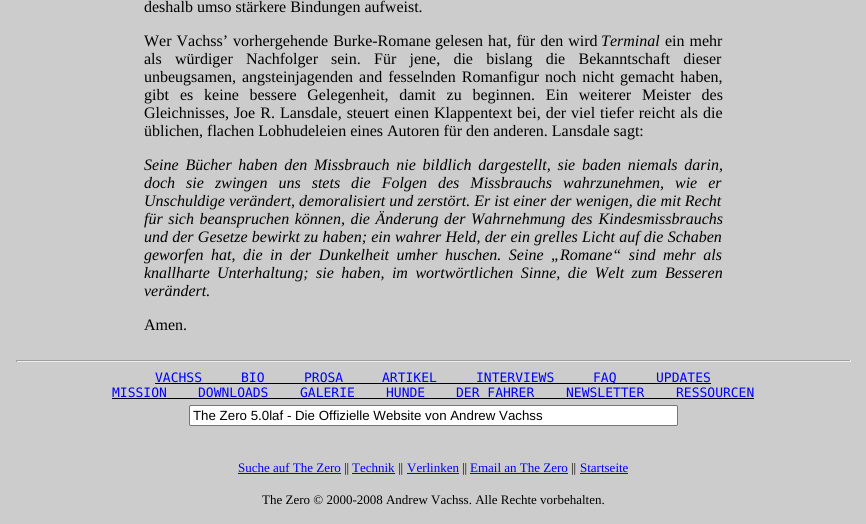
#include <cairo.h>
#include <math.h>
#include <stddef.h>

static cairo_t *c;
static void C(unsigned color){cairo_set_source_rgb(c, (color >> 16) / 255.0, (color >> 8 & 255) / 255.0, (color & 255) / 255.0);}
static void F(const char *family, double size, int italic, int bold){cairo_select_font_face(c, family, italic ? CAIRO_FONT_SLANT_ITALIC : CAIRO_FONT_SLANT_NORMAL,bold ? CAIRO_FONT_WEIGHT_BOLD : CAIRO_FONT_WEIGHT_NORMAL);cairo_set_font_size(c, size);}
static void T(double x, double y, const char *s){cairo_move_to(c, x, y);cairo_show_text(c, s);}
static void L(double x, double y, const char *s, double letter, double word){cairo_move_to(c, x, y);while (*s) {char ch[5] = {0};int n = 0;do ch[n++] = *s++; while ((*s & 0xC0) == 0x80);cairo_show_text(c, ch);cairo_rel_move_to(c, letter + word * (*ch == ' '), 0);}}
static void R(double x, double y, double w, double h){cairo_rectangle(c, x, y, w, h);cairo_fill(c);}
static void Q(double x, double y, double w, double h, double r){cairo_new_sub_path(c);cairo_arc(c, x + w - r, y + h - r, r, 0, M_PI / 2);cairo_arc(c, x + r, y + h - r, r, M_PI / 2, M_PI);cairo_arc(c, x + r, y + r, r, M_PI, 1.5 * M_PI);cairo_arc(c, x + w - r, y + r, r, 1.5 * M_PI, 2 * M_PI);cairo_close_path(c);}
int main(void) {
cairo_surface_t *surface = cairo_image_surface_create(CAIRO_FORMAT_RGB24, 866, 524);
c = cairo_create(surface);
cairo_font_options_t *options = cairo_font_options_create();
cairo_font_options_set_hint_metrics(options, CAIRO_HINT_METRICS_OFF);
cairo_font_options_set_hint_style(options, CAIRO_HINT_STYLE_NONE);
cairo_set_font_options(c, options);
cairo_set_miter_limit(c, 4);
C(0xcccccc);
cairo_paint(c);
F("Liberation Serif",16,0,0);
C(0x000000);
T(144,12,"deshalb umso stärkere Bindungen aufweist.");
L(144,46,"Wer Vachss’ vorhergehende Burke-Romane",0,1);
L(435,46,"gelesen hat, für den wird",0,1);
F("Liberation Serif",16,1,0);
T(601,46,"Terminal");
F("Liberation Serif",16,0,0);
L(665,46,"ein mehr",0,1);
L(144,64,"als würdiger Nachfolger",0,9.25);
L(331,64,"sein. Für jene, die bislang die Bekanntschaft dieser",0,9.25);
T(144,82,"unbeugsamen,");
L(242,82,"angsteinjagenden and fesselnden Romanfigur noch nicht gemacht haben,",0,2);
T(144,100,"gibt");
L(180,100,"es keine bessere Gelegenheit, damit zu beginnen. Ein weiterer Meister des",0,6.75);
L(144,118,"Gleichnisses, Joe R. Lansdale, steuert einen Klappentext bei, der viel",0,1);
L(600,118,"tiefer reicht als die",0,1);
T(144,136,"üblichen, flachen Lobhudeleien eines Autoren für den anderen. Lansdale sagt:");
F("Liberation Serif",16,1,0);
L(144,170,"Seine Bücher haben den",0,2.75);
L(314,170,"Missbrauch nie bildlich dargestellt, sie baden niemals darin,",0,2.75);
L(144,188,"doch sie",0,7);
L(215,188,"zwingen uns stets die Folgen des Missbrauchs wahrzunehmen, wie er",0,7);
T(144,206,"Unschuldige verändert, demoralisiert und zerstört. Er ist einer der wenigen, die mit Recht");
L(144,224,"für sich beanspruchen können, die Änderung der",0,1.5);
L(471,224,"Wahrnehmung des Kindesmissbrauchs",0,2);
L(144,242,"und der Gesetze bewirkt zu haben; ein wahrer Held, der ein grelles Licht auf die Schaben",0,.25);
L(144,260,"geworfen hat, die in",0,3.5);
L(290,260,"der Dunkelheit umher huschen. Seine „Romane“ sind mehr als",0,3.5);
T(144,278,"knallharte");
L(217,278,"Unterhaltung; sie haben, im wortwörtlichen Sinne, die Welt zum Besseren",0,3.5);
T(144,296,"verändert.");
F("Liberation Serif",16,0,0);
T(144,330,"Amen.");
C(0x9f9f9f);
R(16,360,835,1);
C(0xeeeeee);
R(850,360,1,2);
R(16,361,835,1);
C(0x9f9f9f);
R(16,360,1,2);
F("DejaVu Sans Mono",13,0,0);
C(0x0000ff);
T(155,382,"VACHSS");
T(241,382,"BIO");
T(304,382,"PROSA");
T(382,382,"ARTIKEL");
T(476,382,"INTERVIEWS");
C(0x000000);
R(155,383,556,1);
C(0x0000ff);
T(593,382,"FAQ");
T(656,382,"UPDATES");
T(112,397,"MISSION");
C(0x000000);
R(112,398,642,1);
C(0x0000ff);
T(198,397,"DOWNLOADS");
T(300,397,"GALERIE");
T(386,397,"HUNDE");
T(456,397,"DER FAHRER");
T(566,397,"NEWSLETTER");
T(676,397,"RESSOURCEN");
C(0xffffff);
Q(189.5,405.5,488,20,1.5);
cairo_fill_preserve(c);
C(0x767676);
cairo_set_line_width(c,1);
cairo_stroke(c);
F("Liberation Sans",13.3,0,0);
C(0x000000);
T(193,420,"The Zero 5.0laf - Die Offizielle Website von Andrew Vachss");
F("Liberation Serif",13,0,0);
C(0x0000ff);
T(238,472,"Suche auf The Zero");
R(238,473,103,1);
C(0x000000);
T(344,472,"||");
C(0x0000ff);
T(352,472,"Technik");
R(352,473,43,1);
C(0x000000);
T(398,472,"||");
C(0x0000ff);
T(407,472,"Verlinken");
R(407,473,52,1);
C(0x000000);
T(462,472,"||");
C(0x0000ff);
T(470,472,"Email an The Zero");
R(470,473,98,1);
C(0x000000);
T(571,472,"||");
C(0x0000ff);
T(580,472,"Startseite");
R(580,473,48,1);
C(0x000000);
T(262,504,"The Zero © 2000-2008 Andrew Vachss. Alle Rechte vorbehalten.");
cairo_surface_write_to_png(surface, "o.png");
cairo_font_options_destroy(options);
cairo_destroy(c);
cairo_surface_destroy(surface);
return 0;
}
